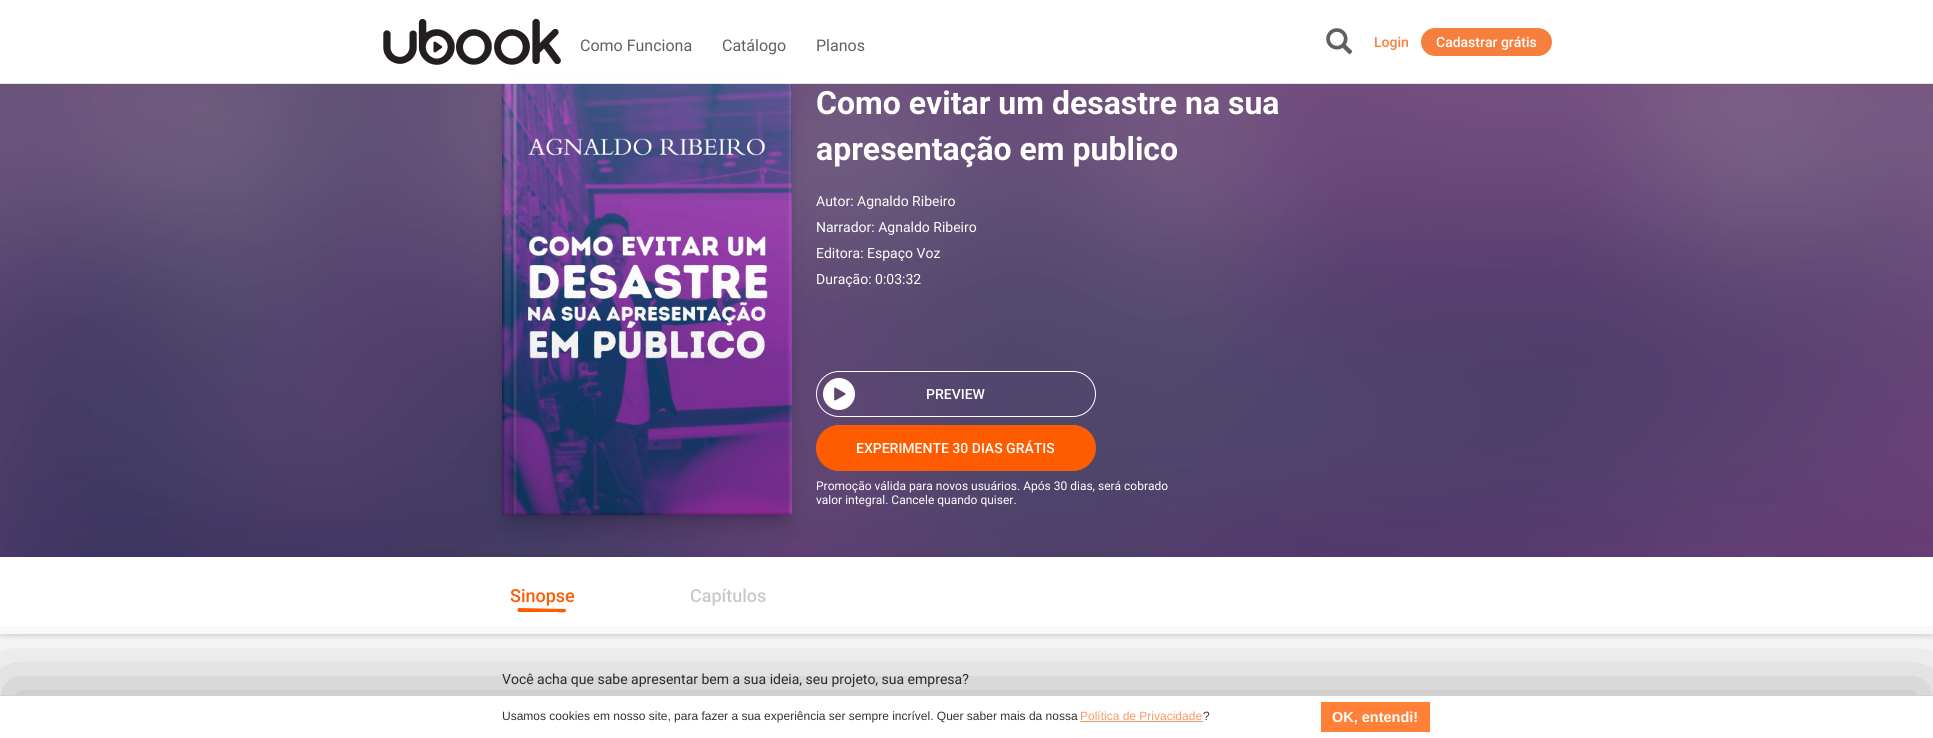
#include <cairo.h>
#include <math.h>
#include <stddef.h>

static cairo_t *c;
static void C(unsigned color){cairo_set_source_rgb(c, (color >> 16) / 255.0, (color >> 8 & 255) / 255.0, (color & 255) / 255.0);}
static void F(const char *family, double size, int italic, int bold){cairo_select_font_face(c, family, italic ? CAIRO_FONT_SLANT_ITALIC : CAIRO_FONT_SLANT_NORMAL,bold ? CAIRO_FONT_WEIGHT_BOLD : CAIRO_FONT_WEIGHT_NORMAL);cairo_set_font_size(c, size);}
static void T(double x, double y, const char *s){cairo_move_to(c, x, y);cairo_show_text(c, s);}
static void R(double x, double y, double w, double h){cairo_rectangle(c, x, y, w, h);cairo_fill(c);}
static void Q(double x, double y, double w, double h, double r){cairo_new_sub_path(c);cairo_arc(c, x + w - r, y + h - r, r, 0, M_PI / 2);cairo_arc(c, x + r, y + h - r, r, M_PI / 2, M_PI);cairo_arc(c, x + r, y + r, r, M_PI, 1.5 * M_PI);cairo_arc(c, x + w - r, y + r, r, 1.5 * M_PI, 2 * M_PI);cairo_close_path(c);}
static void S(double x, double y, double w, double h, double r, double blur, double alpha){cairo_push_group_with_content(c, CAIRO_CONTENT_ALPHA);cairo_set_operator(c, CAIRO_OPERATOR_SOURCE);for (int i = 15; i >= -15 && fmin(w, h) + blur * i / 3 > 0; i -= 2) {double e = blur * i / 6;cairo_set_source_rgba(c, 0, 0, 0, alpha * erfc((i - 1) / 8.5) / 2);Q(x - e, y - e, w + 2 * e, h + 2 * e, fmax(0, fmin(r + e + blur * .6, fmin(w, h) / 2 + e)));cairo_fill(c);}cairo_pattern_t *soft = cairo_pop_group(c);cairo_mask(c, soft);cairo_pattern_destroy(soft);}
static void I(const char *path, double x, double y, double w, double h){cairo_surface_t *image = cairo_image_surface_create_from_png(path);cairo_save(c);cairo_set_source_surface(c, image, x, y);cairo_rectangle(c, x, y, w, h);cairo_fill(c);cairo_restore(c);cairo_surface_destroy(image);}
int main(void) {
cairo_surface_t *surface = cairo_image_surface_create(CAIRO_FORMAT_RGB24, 1933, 738);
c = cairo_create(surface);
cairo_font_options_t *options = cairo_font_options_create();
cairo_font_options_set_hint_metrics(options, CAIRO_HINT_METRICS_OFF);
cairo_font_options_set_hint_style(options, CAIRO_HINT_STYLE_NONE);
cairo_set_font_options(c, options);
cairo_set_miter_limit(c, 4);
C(0xffffff);
cairo_paint(c);
C(0x56206b);
R(0,84,1933,473);
I("3.png",0,84,1933,473);
C(0x000000);
S(506,88,282,427,0,4,.2);
Q(816.5,371.5,279,45,22.5);
C(0xffffff);
cairo_set_line_width(c,1);
cairo_stroke(c);
C(0xff5b00);
Q(816.5,425.5,279,45,22.5);
cairo_fill_preserve(c);
cairo_stroke(c);
C(0x000000);
S(510,104,274,419,0,12,.2);
C(0xffffff);
R(506,80,282,3);
C(0xe7e7e7);
R(0,83,1933,1);
I("1.png",383,18,178,47);
F("Roboto",16,0,0);
C(0x606060);
T(580,51,"Como Funciona");
T(722,51,"Catálogo");
T(816,51,"Planos");
I("2.png",1326,28,27,27);
F("Roboto Medium",14,0,0);
C(0xf67f3e);
T(1374,47,"Login");
Q(1421,28,131,28,14);
cairo_fill(c);
C(0xffffff);
T(1436,47,"Cadastrar grátis");
I("4.png",502,84,290,431);
F("Roboto",32,0,1);
T(816,114,"Como evitar um desastre na sua");
T(816,160,"apresentação em publico");
F("Roboto",14,0,0);
T(816,206,"Autor: Agnaldo Ribeiro");
T(816,232,"Narrador: Agnaldo Ribeiro");
T(816,258,"Editora: Espaço Voz");
T(816,284,"Duração: 0:03:32");
I("5.png",823,378,32,32);
F("Roboto Medium",14,0,0);
T(926,399,"PREVIEW");
T(856,453,"EXPERIMENTE 30 DIAS GRÁTIS");
F("Roboto",12,0,0);
T(816,490,"Promoção válida para novos usuários. Após 30 dias, será cobrado");
T(816,504,"valor integral. Cancele quando quiser.");
cairo_save(c);
cairo_set_fill_rule(c,CAIRO_FILL_RULE_EVEN_ODD);
cairo_new_path(c);
cairo_move_to(c,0,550);
cairo_line_to(c,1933,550);
cairo_line_to(c,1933,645);
cairo_line_to(c,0,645);
cairo_close_path(c);
cairo_move_to(c,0,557);
cairo_line_to(c,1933,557);
cairo_line_to(c,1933,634);
cairo_line_to(c,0,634);
cairo_close_path(c);
cairo_clip(c);
C(0x000000);
S(0,559,1933,77,0,2.5,.15);
cairo_restore(c);
F("Roboto Medium",18,0,0);
C(0xff5b00);
T(510,602,"Sinopse");
cairo_new_path(c);
cairo_move_to(c,519,608);
cairo_line_to(c,565,609);
cairo_line_to(c,566,610);
cairo_curve_to(c,567,614,558,612,557,612);
cairo_line_to(c,519,612);
cairo_curve_to(c,517,612,517,608,519,608);
cairo_close_path(c);
cairo_fill(c);
C(0xc9c9c9);
T(690,602,"Capítulos");
F("Roboto",14,0,0);
C(0x333333);
T(502,684,"Você acha que sabe apresentar bem a sua ideia, seu projeto, sua empresa?");
cairo_save(c);
cairo_rectangle(c,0,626,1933,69);
cairo_clip(c);
C(0x000000);
S(8,683,1917,27,0,42.5,.3);
cairo_restore(c);
C(0xd1d1d1);
R(0,695,1933,1);
F("Liberation Sans",12,0,0);
C(0x333333);
T(502,720,"Usamos cookies em nosso site, para fazer a sua experiência ser sempre incrível. Quer saber mais da nossa");
C(0xf89965);
T(1080,720,"Política de Privacidade");
R(1080,721,123,1);
C(0x333333);
T(1203,720,"?");
C(0xff8036);
R(1321,702,109,30);
F("Liberation Sans",14.5,0,1);
C(0xffffff);
T(1332,722,"OK, entendi!");
cairo_surface_write_to_png(surface, "o.png");
cairo_font_options_destroy(options);
cairo_destroy(c);
cairo_surface_destroy(surface);
return 0;
}
